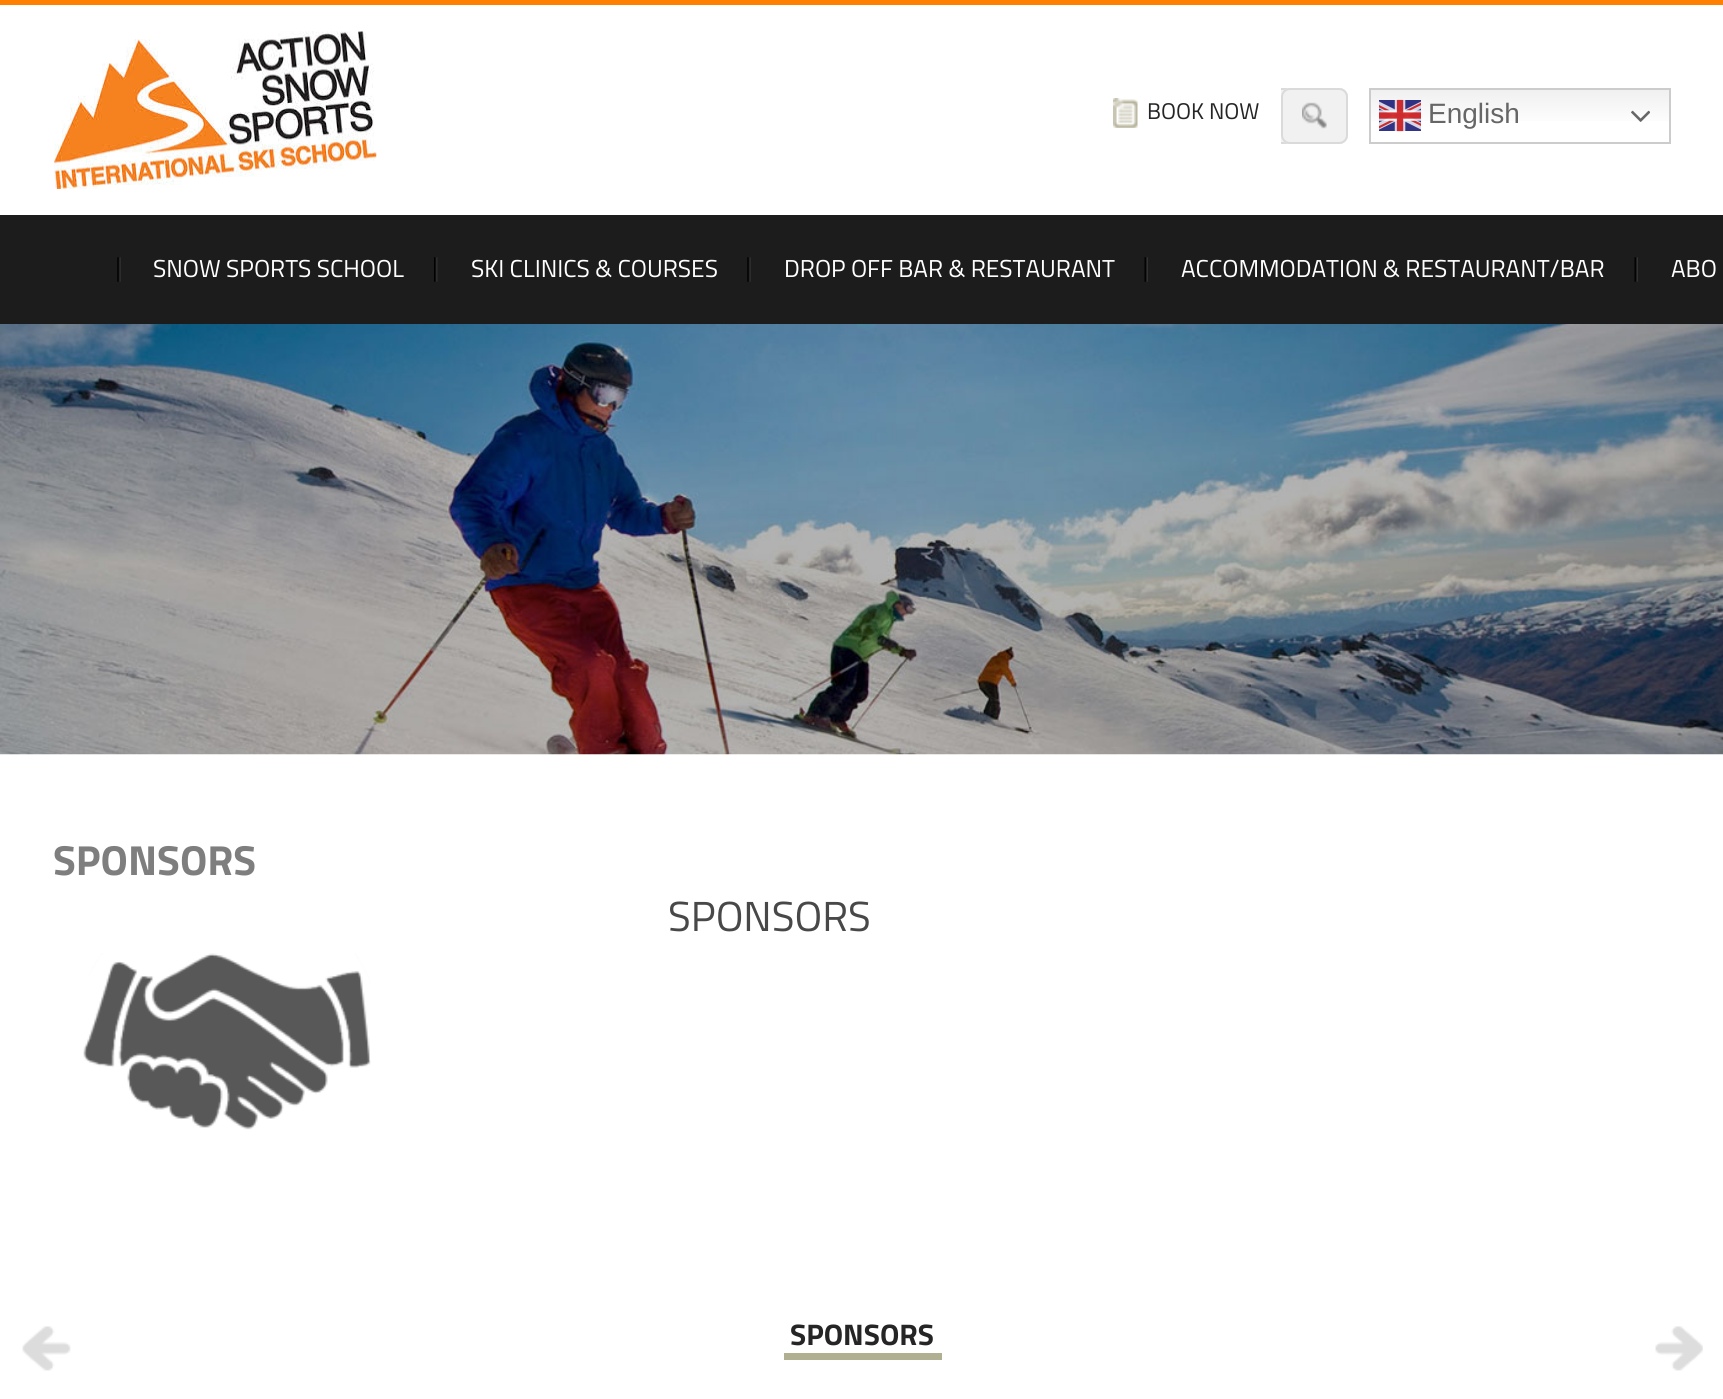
#include <cairo.h>
#include <math.h>
#include <stddef.h>

static cairo_t *c;
static void C(unsigned color){cairo_set_source_rgb(c, (color >> 16) / 255.0, (color >> 8 & 255) / 255.0, (color & 255) / 255.0);}
static void F(const char *family, double size, int italic, int bold){cairo_select_font_face(c, family, italic ? CAIRO_FONT_SLANT_ITALIC : CAIRO_FONT_SLANT_NORMAL,bold ? CAIRO_FONT_WEIGHT_BOLD : CAIRO_FONT_WEIGHT_NORMAL);cairo_set_font_size(c, size);}
static void T(double x, double y, const char *s){cairo_move_to(c, x, y);cairo_show_text(c, s);}
static void R(double x, double y, double w, double h){cairo_rectangle(c, x, y, w, h);cairo_fill(c);}
static void Q(double x, double y, double w, double h, double r){cairo_new_sub_path(c);cairo_arc(c, x + w - r, y + h - r, r, 0, M_PI / 2);cairo_arc(c, x + r, y + h - r, r, M_PI / 2, M_PI);cairo_arc(c, x + r, y + r, r, M_PI, 1.5 * M_PI);cairo_arc(c, x + w - r, y + r, r, 1.5 * M_PI, 2 * M_PI);cairo_close_path(c);}
static void I(const char *path, double x, double y, double w, double h){cairo_surface_t *image = cairo_image_surface_create_from_png(path);cairo_save(c);cairo_set_source_surface(c, image, x, y);cairo_rectangle(c, x, y, w, h);cairo_fill(c);cairo_restore(c);cairo_surface_destroy(image);}
int main(void) {
cairo_surface_t *surface = cairo_image_surface_create(CAIRO_FORMAT_RGB24, 1723, 1399);
c = cairo_create(surface);
cairo_font_options_t *options = cairo_font_options_create();
cairo_font_options_set_hint_metrics(options, CAIRO_HINT_METRICS_OFF);
cairo_font_options_set_hint_style(options, CAIRO_HINT_STYLE_NONE);
cairo_set_font_options(c, options);
cairo_set_miter_limit(c, 4);
cairo_pattern_t *gradient;
C(0xffffff);
cairo_paint(c);
C(0xff8000);
R(0,0,1723,5);
I("1.png",54,31,323,158);
I("2.png",1113,98,25,30);
F("Titillium Web",22.75,0,0);
C(0x252525);
T(1147,119,"BOOK NOW");
C(0xf1f1f1);
cairo_new_path(c);
cairo_move_to(c,1281,88);
cairo_line_to(c,1339,88);
cairo_curve_to(c,1344,88,1348,92,1348,97);
cairo_line_to(c,1348,135);
cairo_curve_to(c,1348,140,1344,144,1339,144);
cairo_line_to(c,1281,144);
cairo_close_path(c);
cairo_fill(c);
cairo_save(c);
cairo_rectangle(c,1281,88,67,56);
cairo_clip(c);
Q(1272,89,75,54,8);
C(0xdadada);
cairo_stroke(c);
cairo_restore(c);
Q(1281,88,67,56,9);
cairo_fill(c);
I("3.png",1302,102,25,27);
Q(1282,89,65,54,8);
C(0xdadada);
cairo_stroke(c);
gradient = cairo_pattern_create_linear(1520,87,1520,144);
cairo_pattern_add_color_stop_rgba(gradient,0,0.937,0.937,0.937,1);
cairo_pattern_add_color_stop_rgba(gradient,.7,1,1,1,1);
cairo_set_source(c,gradient);
cairo_pattern_destroy(gradient);
R(1371,90,298,31);
cairo_rectangle(c,1370,89,300,54);
C(0xcccccc);
cairo_stroke(c);
I("4.png",1379,99,42,33);
F("Liberation Sans",28,0,0);
C(0x666666);
T(1428,123,"English");
I("5.png",1631,110,19,12);
C(0x1c1c1c);
R(0,215,1723,109);
I("6.png",117,257,4,25);
I("7.png",434,257,4,25);
F("Titillium Web",24.5,0,0);
C(0xffffff);
T(153,277,"SNOW SPORTS SCHOOL");
I("6.png",747,257,4,25);
T(471,277,"SKI CLINICS & COURSES");
I("8.png",1144,257,4,25);
T(784,277,"DROP OFF BAR & RESTAURANT");
I("8.png",1634,257,4,25);
T(1181,277,"ACCOMMODATION & RESTAURANT/BAR");
T(1671,277,"ABO");
I("9.png",0,324,1723,431);
F("Titillium Web",42,0,1);
C(0x7e7e7e);
T(53,875,"SPONSORS");
F("Titillium Web",42,0,0);
C(0x484848);
T(668,931,"SPONSORS");
I("10.png",83,953,288,177);
C(0xb0af91);
R(784,1353,158,7);
F("Titillium Web",29.75,0,1);
C(0x252525);
T(790,1345,"SPONSORS");
I("11.png",22,1326,49,45);
I("12.png",1655,1326,48,45);
cairo_surface_write_to_png(surface, "o.png");
cairo_font_options_destroy(options);
cairo_destroy(c);
cairo_surface_destroy(surface);
return 0;
}
